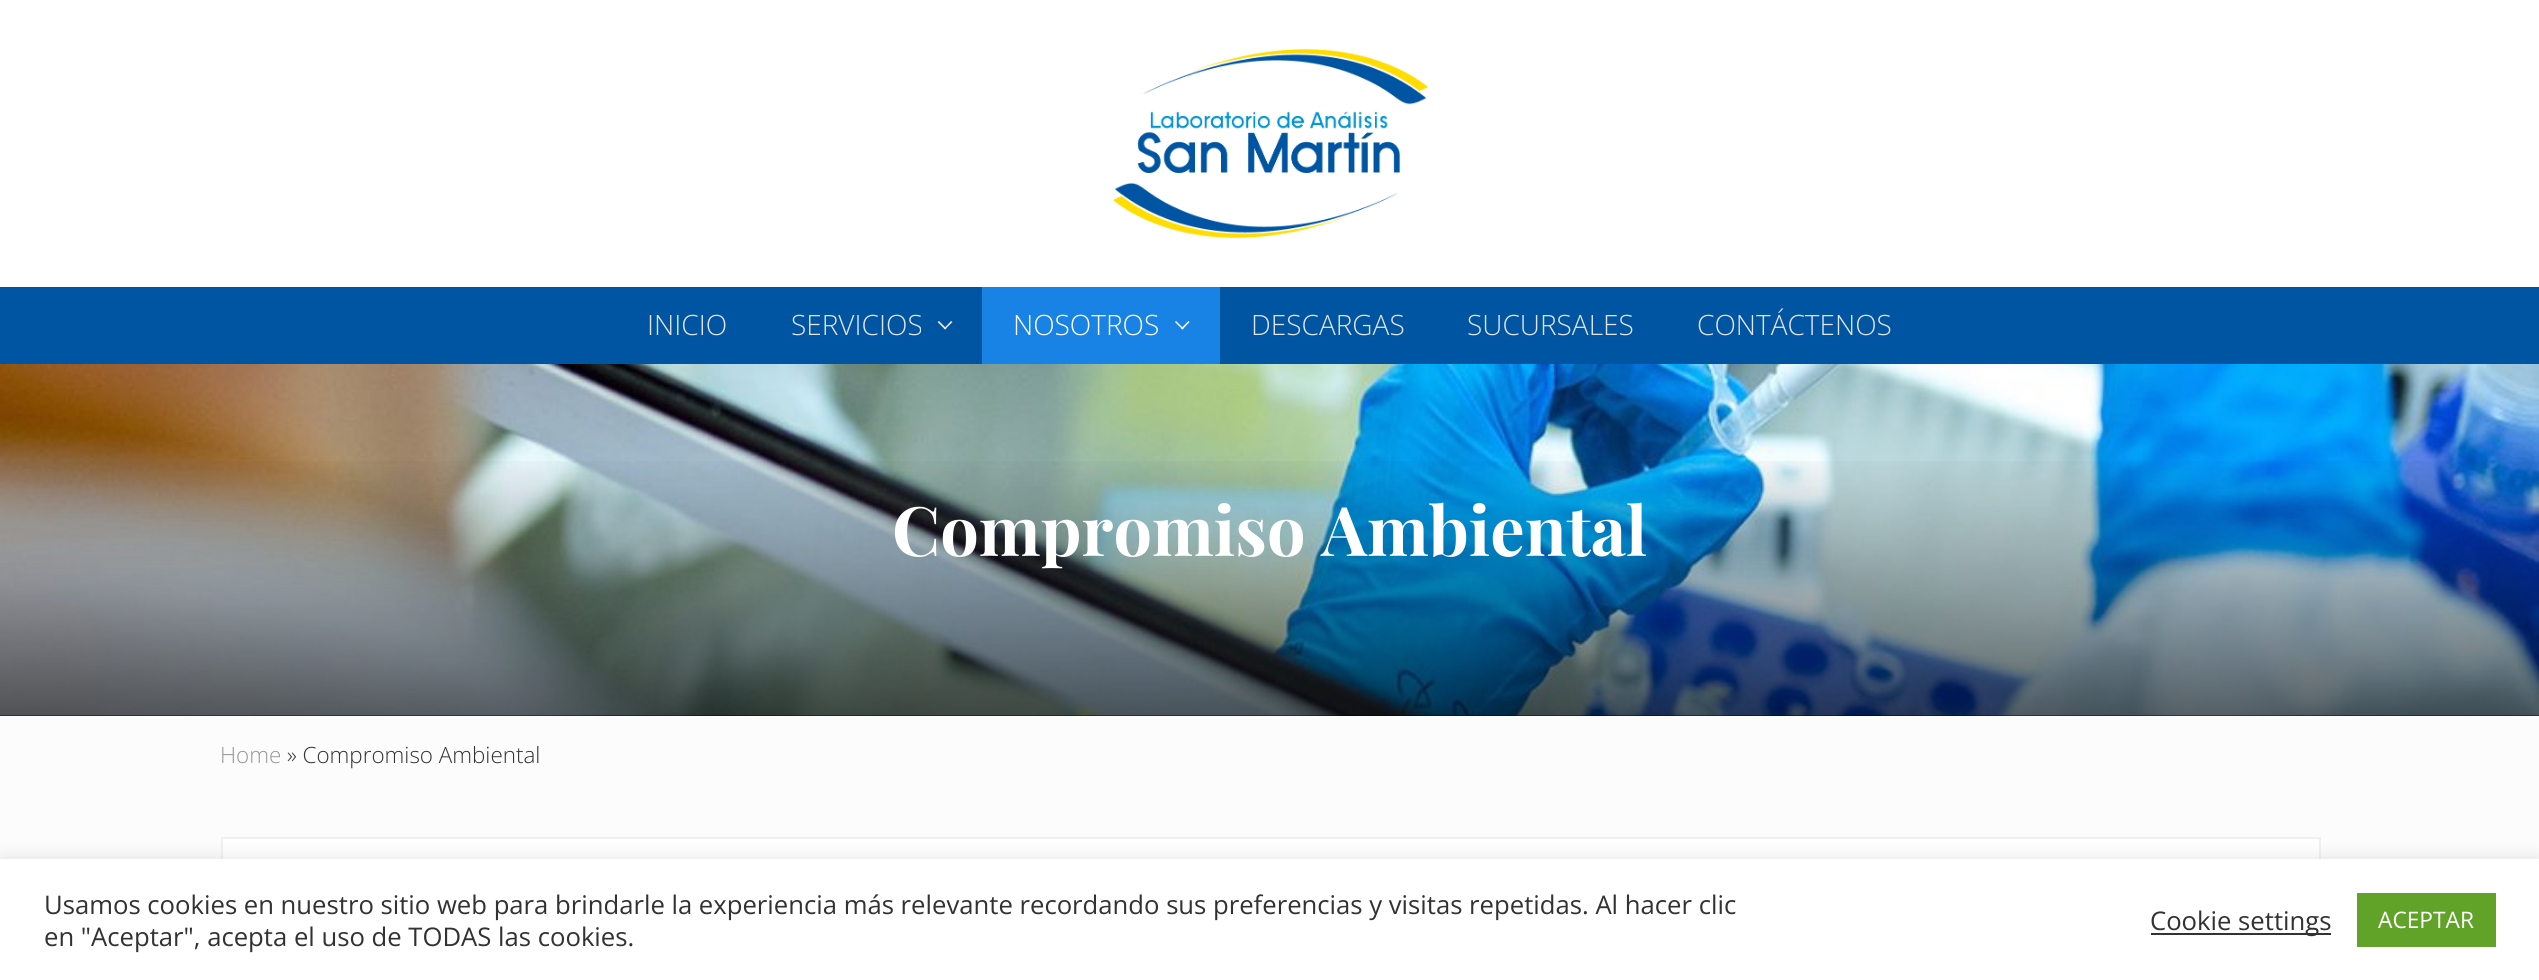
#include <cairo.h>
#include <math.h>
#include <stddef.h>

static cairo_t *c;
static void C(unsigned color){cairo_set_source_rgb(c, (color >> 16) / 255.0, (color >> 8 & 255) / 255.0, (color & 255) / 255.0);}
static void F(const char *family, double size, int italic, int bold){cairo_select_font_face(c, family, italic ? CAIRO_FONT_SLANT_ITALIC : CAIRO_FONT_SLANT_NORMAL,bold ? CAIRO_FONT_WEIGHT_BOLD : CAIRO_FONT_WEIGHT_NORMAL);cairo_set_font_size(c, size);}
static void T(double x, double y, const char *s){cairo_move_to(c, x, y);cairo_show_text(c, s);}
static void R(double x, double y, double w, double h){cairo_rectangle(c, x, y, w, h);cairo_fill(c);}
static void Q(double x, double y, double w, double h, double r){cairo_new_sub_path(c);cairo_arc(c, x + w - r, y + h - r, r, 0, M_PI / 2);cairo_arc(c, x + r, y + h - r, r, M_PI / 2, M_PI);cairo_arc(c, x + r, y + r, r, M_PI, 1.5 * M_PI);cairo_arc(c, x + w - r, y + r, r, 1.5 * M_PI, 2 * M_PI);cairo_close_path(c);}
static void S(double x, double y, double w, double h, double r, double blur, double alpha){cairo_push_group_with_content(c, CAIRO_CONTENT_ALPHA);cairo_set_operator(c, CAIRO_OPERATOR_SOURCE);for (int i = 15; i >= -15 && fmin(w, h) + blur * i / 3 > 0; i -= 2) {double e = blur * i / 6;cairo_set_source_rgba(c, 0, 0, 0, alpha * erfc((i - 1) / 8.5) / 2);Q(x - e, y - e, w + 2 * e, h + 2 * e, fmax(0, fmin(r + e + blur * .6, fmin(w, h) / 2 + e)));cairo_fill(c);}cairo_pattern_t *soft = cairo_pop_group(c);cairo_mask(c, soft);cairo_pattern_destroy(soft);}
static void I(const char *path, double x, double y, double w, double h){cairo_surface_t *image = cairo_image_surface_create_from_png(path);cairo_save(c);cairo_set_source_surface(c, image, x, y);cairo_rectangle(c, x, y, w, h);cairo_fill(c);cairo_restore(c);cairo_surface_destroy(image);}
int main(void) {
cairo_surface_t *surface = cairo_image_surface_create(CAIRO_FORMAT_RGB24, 2539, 980);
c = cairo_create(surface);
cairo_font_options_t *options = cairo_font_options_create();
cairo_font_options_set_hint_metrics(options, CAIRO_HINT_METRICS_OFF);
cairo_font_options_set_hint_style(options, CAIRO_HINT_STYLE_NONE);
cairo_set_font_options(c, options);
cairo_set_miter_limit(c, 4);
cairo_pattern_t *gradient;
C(0xfcfcfc);
cairo_paint(c);
C(0xffffff);
R(0,0,2539,287);
I("1.png",1113,49,315,189);
C(0x0055a3);
R(0,287,2539,77);
F("Open Sans Light",28,0,0);
C(0xe4e4e4);
T(647,335,"INICIO");
T(791,335,"SERVICIOS");
cairo_new_path(c);
cairo_move_to(c,951,321);
cairo_line_to(c,952.5,322);
cairo_line_to(c,945,329.5);
cairo_line_to(c,944,328.5);
cairo_close_path(c);
cairo_fill(c);
cairo_new_path(c);
cairo_move_to(c,939,321);
cairo_line_to(c,946.5,328.5);
cairo_line_to(c,945,329.5);
cairo_line_to(c,937.5,322);
cairo_close_path(c);
cairo_fill(c);
C(0x1882e5);
R(982,287,238,77);
C(0xffffff);
T(1013,335,"NOSOTROS");
cairo_new_path(c);
cairo_move_to(c,1188.5,321);
cairo_line_to(c,1189.5,322);
cairo_line_to(c,1182.5,329.5);
cairo_line_to(c,1181,328.5);
cairo_close_path(c);
cairo_fill(c);
cairo_new_path(c);
cairo_move_to(c,1176,321);
cairo_line_to(c,1183.5,328.5);
cairo_line_to(c,1182.5,329.5);
cairo_line_to(c,1175,322);
cairo_close_path(c);
cairo_fill(c);
C(0xe4e4e4);
T(1251,335,"DESCARGAS");
T(1467,335,"SUCURSALES");
T(1697,335,"CONTÁCTENOS");
C(0x000000);
R(0,715,2539,1);
I("2.png",0,364,2539,352);
gradient = cairo_pattern_create_linear(1270,364,1270,716);
cairo_pattern_add_color_stop_rgba(gradient,.25,0,0,0,0);
cairo_pattern_add_color_stop_rgba(gradient,1,0,0,0,.6);
cairo_set_source(c,gradient);
cairo_pattern_destroy(gradient);
R(0,461,2539,255);
F("Playfair Display",68.3,0,1);
C(0xffffff);
T(892,556,"Compromiso Ambiental");
F("Open Sans Light",22.4,0,0);
C(0x979797);
T(220,763,"Home");
C(0x323232);
T(287,763,"» Compromiso Ambiental");
C(0xffffff);
R(223,839,2096,20);
cairo_rectangle(c,222,838,2098,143);
C(0xf0f0f0);
cairo_stroke(c);
C(0xacabab);
S(0,858,2539,120,0,9,.3);
C(0xffffff);
R(0,859,2539,121);
F("Open Sans",25.67,0,0);
C(0x323232);
T(44,914,"Usamos cookies en nuestro sitio web para brindarle la experiencia más relevante recordando sus preferencias y visitas repetidas. Al hacer clic");
T(44,946,"en \"Aceptar\", acepta el uso de TODAS las cookies.");
C(0x333333);
R(2151,933,180,2);
C(0x323232);
T(2150,930,"Cookie settings");
C(0x61a229);
R(2357,893,139,54);
F("Open Sans",22.75,0,0);
C(0xffffff);
T(2378,928,"ACEPTAR");
cairo_surface_write_to_png(surface, "o.png");
cairo_font_options_destroy(options);
cairo_destroy(c);
cairo_surface_destroy(surface);
return 0;
}
